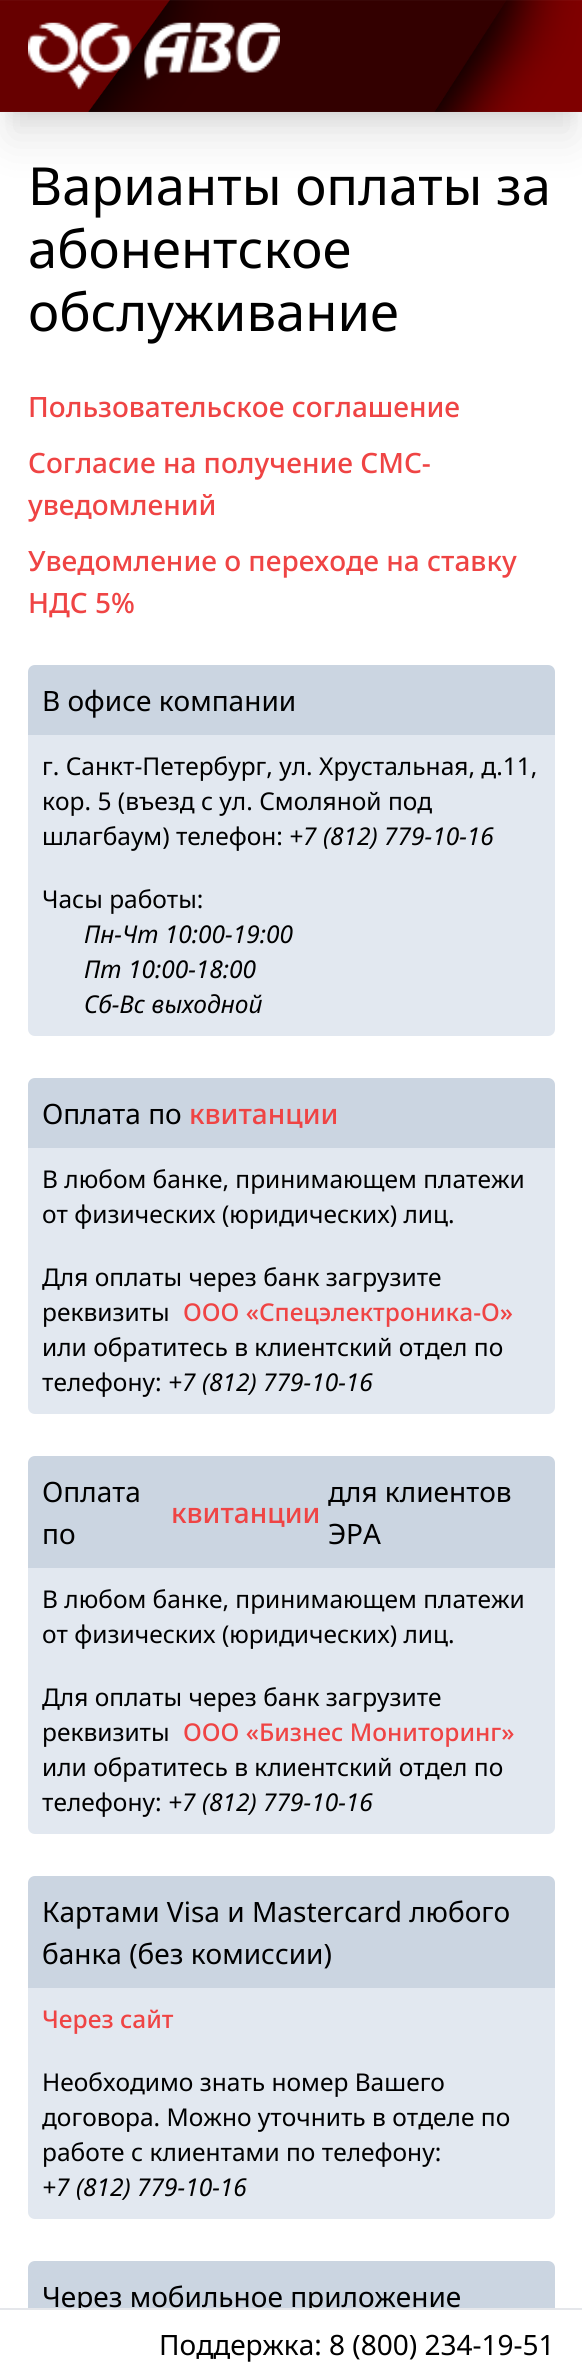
#include <cairo.h>
#include <math.h>
#include <stddef.h>

static cairo_t *c;
static void C(unsigned color){cairo_set_source_rgb(c, (color >> 16) / 255.0, (color >> 8 & 255) / 255.0, (color & 255) / 255.0);}
static void F(const char *family, double size, int italic, int bold){cairo_select_font_face(c, family, italic ? CAIRO_FONT_SLANT_ITALIC : CAIRO_FONT_SLANT_NORMAL,bold ? CAIRO_FONT_WEIGHT_BOLD : CAIRO_FONT_WEIGHT_NORMAL);cairo_set_font_size(c, size);}
static void T(double x, double y, const char *s){cairo_move_to(c, x, y);cairo_show_text(c, s);}
static void R(double x, double y, double w, double h){cairo_rectangle(c, x, y, w, h);cairo_fill(c);}
static void Q(double x, double y, double w, double h, double r){cairo_new_sub_path(c);cairo_arc(c, x + w - r, y + h - r, r, 0, M_PI / 2);cairo_arc(c, x + r, y + h - r, r, M_PI / 2, M_PI);cairo_arc(c, x + r, y + r, r, M_PI, 1.5 * M_PI);cairo_arc(c, x + w - r, y + r, r, 1.5 * M_PI, 2 * M_PI);cairo_close_path(c);}
static void S(double x, double y, double w, double h, double r, double blur, double alpha){cairo_push_group_with_content(c, CAIRO_CONTENT_ALPHA);cairo_set_operator(c, CAIRO_OPERATOR_SOURCE);for (int i = 15; i >= -15 && fmin(w, h) + blur * i / 3 > 0; i -= 2) {double e = blur * i / 6;cairo_set_source_rgba(c, 0, 0, 0, alpha * erfc((i - 1) / 8.5) / 2);Q(x - e, y - e, w + 2 * e, h + 2 * e, fmax(0, fmin(r + e + blur * .6, fmin(w, h) / 2 + e)));cairo_fill(c);}cairo_pattern_t *soft = cairo_pop_group(c);cairo_mask(c, soft);cairo_pattern_destroy(soft);}
static void I(const char *path, double x, double y, double w, double h){cairo_surface_t *image = cairo_image_surface_create_from_png(path);cairo_save(c);cairo_set_source_surface(c, image, x, y);cairo_rectangle(c, x, y, w, h);cairo_fill(c);cairo_restore(c);cairo_surface_destroy(image);}
int main(void) {
cairo_surface_t *surface = cairo_image_surface_create(CAIRO_FORMAT_RGB24, 582, 2377);
c = cairo_create(surface);
cairo_font_options_t *options = cairo_font_options_create();
cairo_font_options_set_hint_metrics(options, CAIRO_HINT_METRICS_OFF);
cairo_font_options_set_hint_style(options, CAIRO_HINT_STYLE_NONE);
cairo_set_font_options(c, options);
cairo_set_miter_limit(c, 4);
C(0xffffff);
cairo_paint(c);
C(0x000000);
S(11,25,561,91,0,9,.1);
S(9,44,565,94,0,22,.1);
I("1.png",0,0,582,112);
I("2.png",28,22,252,68);
F("Noto Sans",52.5,0,0);
C(0x000000);
T(28,205,"Варианты оплаты за");
T(28,268,"абонентское");
T(28,331,"обслуживание");
F("Noto Sans Medium",28,0,0);
C(0xef4444);
T(28,417,"Пользовательское соглашение");
T(28,473,"Согласие на получение СМС-");
T(28,515,"уведомлений");
T(28,571,"Уведомление о переходе на ставку");
T(28,613,"НДС 5%");
C(0xcbd5e1);
cairo_new_path(c);
cairo_move_to(c,35,665);
cairo_line_to(c,548,665);
cairo_curve_to(c,552,665,555,668,555,672);
cairo_line_to(c,555,735);
cairo_line_to(c,28,735);
cairo_line_to(c,28,672);
cairo_curve_to(c,28,668,31,665,35,665);
cairo_close_path(c);
cairo_fill(c);
F("Noto Sans",28,0,0);
C(0x000000);
T(42,711,"В офисе компании");
C(0xe2e8f0);
R(28,735,527,133);
F("Noto Sans",24.5,0,0);
C(0x000000);
T(42,775,"г. Санкт-Петербург, ул. Хрустальная, д.11,");
T(42,810,"кор. 5 (въезд с ул. Смоляной под");
T(42,845,"шлагбаум) телефон:");
F("Noto Sans",24.5,1,0);
T(289,845,"+7 (812) 779-10-16");
C(0xe2e8f0);
cairo_new_path(c);
cairo_move_to(c,28,868);
cairo_line_to(c,555,868);
cairo_line_to(c,555,1029);
cairo_curve_to(c,555,1033,552,1036,548,1036);
cairo_line_to(c,35,1036);
cairo_curve_to(c,31,1036,28,1033,28,1029);
cairo_close_path(c);
cairo_fill(c);
F("Noto Sans",24.5,0,0);
C(0x000000);
T(42,908,"Часы работы:");
F("Noto Sans",24.5,1,0);
T(84,943,"Пн-Чт 10:00-19:00");
T(84,978,"Пт 10:00-18:00");
T(84,1013,"Сб-Вс выходной");
C(0xcbd5e1);
cairo_new_path(c);
cairo_move_to(c,35,1078);
cairo_line_to(c,548,1078);
cairo_curve_to(c,552,1078,555,1081,555,1085);
cairo_line_to(c,555,1148);
cairo_line_to(c,28,1148);
cairo_line_to(c,28,1085);
cairo_curve_to(c,28,1081,31,1078,35,1078);
cairo_close_path(c);
cairo_fill(c);
F("Noto Sans",28,0,0);
C(0x000000);
T(42,1124,"Оплата по");
F("Noto Sans Medium",28,0,0);
C(0xef4444);
T(189,1124,"квитанции");
C(0xe2e8f0);
R(28,1148,527,98);
F("Noto Sans",24.5,0,0);
C(0x000000);
T(42,1188,"В любом банке, принимающем платежи");
T(42,1223,"от физических (юридических) лиц.");
C(0xe2e8f0);
cairo_new_path(c);
cairo_move_to(c,28,1246);
cairo_line_to(c,555,1246);
cairo_line_to(c,555,1407);
cairo_curve_to(c,555,1411,552,1414,548,1414);
cairo_line_to(c,35,1414);
cairo_curve_to(c,31,1414,28,1411,28,1407);
cairo_close_path(c);
cairo_fill(c);
C(0x000000);
T(42,1286,"Для оплаты через банк загрузите");
T(42,1321,"реквизиты");
F("Noto Sans Medium",24.5,0,0);
C(0xef4444);
T(183,1321,"ООО «Спецэлектроника-О»");
F("Noto Sans",24.5,0,0);
C(0x000000);
T(42,1356,"или обратитесь в клиентский отдел по");
T(42,1391,"телефону:");
F("Noto Sans",24.5,1,0);
T(168,1391,"+7 (812) 779-10-16");
C(0xcbd5e1);
cairo_new_path(c);
cairo_move_to(c,35,1456);
cairo_line_to(c,548,1456);
cairo_curve_to(c,552,1456,555,1459,555,1463);
cairo_line_to(c,555,1568);
cairo_line_to(c,28,1568);
cairo_line_to(c,28,1463);
cairo_curve_to(c,28,1459,31,1456,35,1456);
cairo_close_path(c);
cairo_fill(c);
F("Noto Sans",28,0,0);
C(0x000000);
T(42,1502,"Оплата");
T(328,1502,"для клиентов");
F("Noto Sans Medium",28,0,0);
C(0xef4444);
T(171,1523,"квитанции");
F("Noto Sans",28,0,0);
C(0x000000);
T(42,1544,"по");
T(328,1544,"ЭРА");
C(0xe2e8f0);
R(28,1568,527,98);
F("Noto Sans",24.5,0,0);
C(0x000000);
T(42,1608,"В любом банке, принимающем платежи");
T(42,1643,"от физических (юридических) лиц.");
C(0xe2e8f0);
cairo_new_path(c);
cairo_move_to(c,28,1666);
cairo_line_to(c,555,1666);
cairo_line_to(c,555,1827);
cairo_curve_to(c,555,1831,552,1834,548,1834);
cairo_line_to(c,35,1834);
cairo_curve_to(c,31,1834,28,1831,28,1827);
cairo_close_path(c);
cairo_fill(c);
C(0x000000);
T(42,1706,"Для оплаты через банк загрузите");
T(42,1741,"реквизиты");
F("Noto Sans Medium",24.5,0,0);
C(0xef4444);
T(183,1741,"ООО «Бизнес Мониторинг»");
F("Noto Sans",24.5,0,0);
C(0x000000);
T(42,1776,"или обратитесь в клиентский отдел по");
T(42,1811,"телефону:");
F("Noto Sans",24.5,1,0);
T(168,1811,"+7 (812) 779-10-16");
C(0xcbd5e1);
cairo_new_path(c);
cairo_move_to(c,35,1876);
cairo_line_to(c,548,1876);
cairo_curve_to(c,552,1876,555,1879,555,1883);
cairo_line_to(c,555,1988);
cairo_line_to(c,28,1988);
cairo_line_to(c,28,1883);
cairo_curve_to(c,28,1879,31,1876,35,1876);
cairo_close_path(c);
cairo_fill(c);
F("Noto Sans",28,0,0);
C(0x000000);
T(42,1922,"Картами Visa и Mastercard любого");
T(42,1964,"банка (без комиссии)");
C(0xe2e8f0);
R(28,1988,527,63);
F("Noto Sans Medium",24.5,0,0);
C(0xef4444);
T(42,2028,"Через сайт");
C(0xe2e8f0);
cairo_new_path(c);
cairo_move_to(c,28,2051);
cairo_line_to(c,555,2051);
cairo_line_to(c,555,2212);
cairo_curve_to(c,555,2216,552,2219,548,2219);
cairo_line_to(c,35,2219);
cairo_curve_to(c,31,2219,28,2216,28,2212);
cairo_close_path(c);
cairo_fill(c);
F("Noto Sans",24.5,0,0);
C(0x000000);
T(42,2091,"Необходимо знать номер Вашего");
T(42,2126,"договора. Можно уточнить в отделе по");
T(42,2161,"работе с клиентами по телефону:");
F("Noto Sans",24.5,1,0);
T(42,2196,"+7 (812) 779-10-16");
C(0xcbd5e1);
cairo_new_path(c);
cairo_move_to(c,35,2261);
cairo_line_to(c,548,2261);
cairo_curve_to(c,552,2261,555,2264,555,2268);
cairo_line_to(c,555,2308);
cairo_line_to(c,28,2308);
cairo_line_to(c,28,2268);
cairo_curve_to(c,28,2264,31,2261,35,2261);
cairo_close_path(c);
cairo_fill(c);
cairo_save(c);
cairo_rectangle(c,0,112,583,2196);
cairo_clip(c);
F("Noto Sans",28,0,0);
C(0x000000);
T(42,2307,"Через мобильное приложение");
cairo_restore(c);
C(0xe5e7eb);
R(0,2308,582,2);
F("Noto Sans",28,0,0);
C(0x000000);
T(159,2355,"Поддержка: 8 (800) 234-19-51");
cairo_surface_write_to_png(surface, "o.png");
cairo_font_options_destroy(options);
cairo_destroy(c);
cairo_surface_destroy(surface);
return 0;
}
